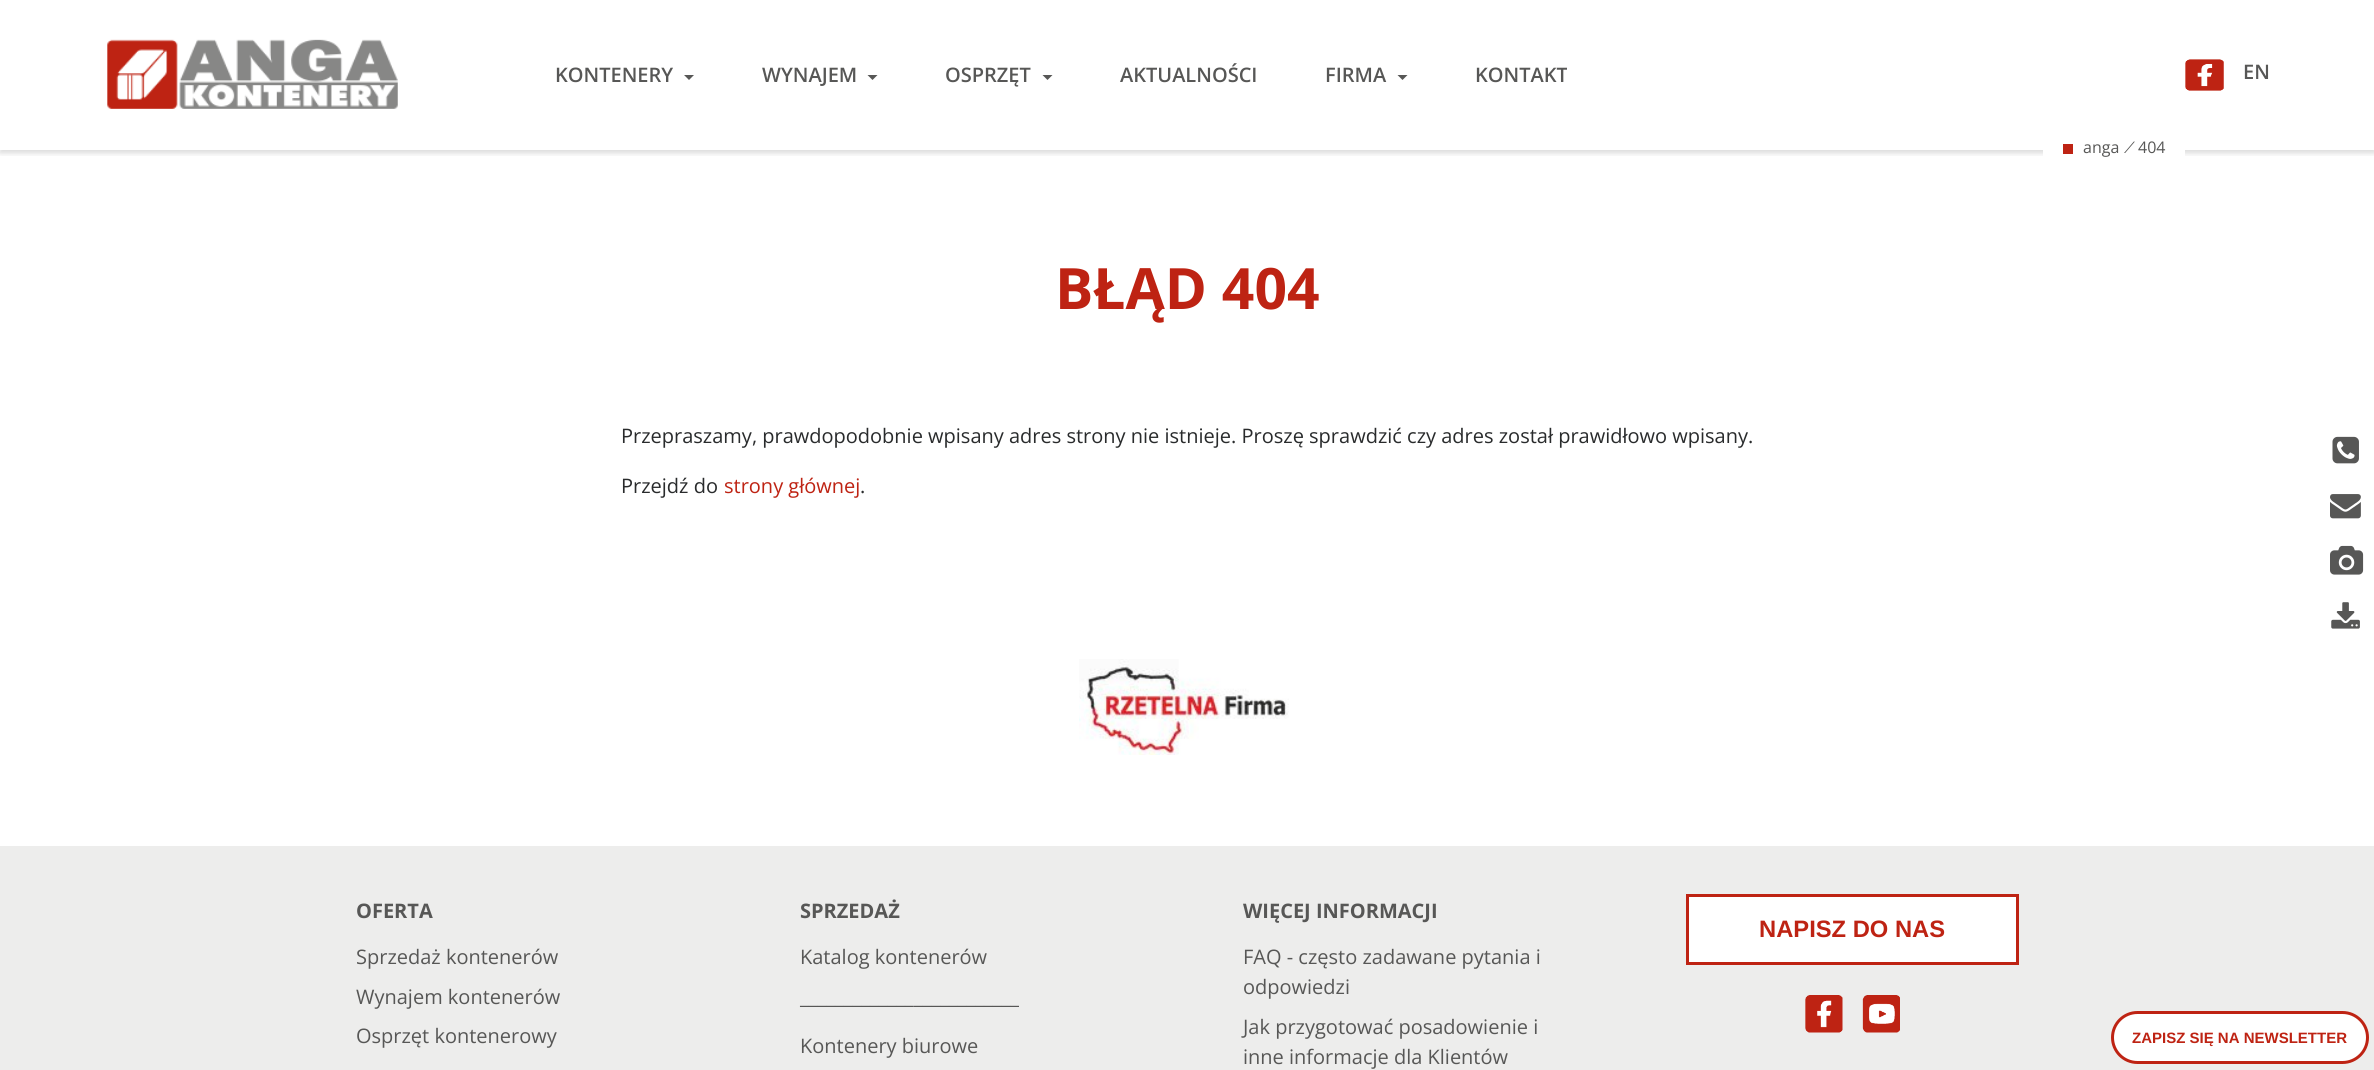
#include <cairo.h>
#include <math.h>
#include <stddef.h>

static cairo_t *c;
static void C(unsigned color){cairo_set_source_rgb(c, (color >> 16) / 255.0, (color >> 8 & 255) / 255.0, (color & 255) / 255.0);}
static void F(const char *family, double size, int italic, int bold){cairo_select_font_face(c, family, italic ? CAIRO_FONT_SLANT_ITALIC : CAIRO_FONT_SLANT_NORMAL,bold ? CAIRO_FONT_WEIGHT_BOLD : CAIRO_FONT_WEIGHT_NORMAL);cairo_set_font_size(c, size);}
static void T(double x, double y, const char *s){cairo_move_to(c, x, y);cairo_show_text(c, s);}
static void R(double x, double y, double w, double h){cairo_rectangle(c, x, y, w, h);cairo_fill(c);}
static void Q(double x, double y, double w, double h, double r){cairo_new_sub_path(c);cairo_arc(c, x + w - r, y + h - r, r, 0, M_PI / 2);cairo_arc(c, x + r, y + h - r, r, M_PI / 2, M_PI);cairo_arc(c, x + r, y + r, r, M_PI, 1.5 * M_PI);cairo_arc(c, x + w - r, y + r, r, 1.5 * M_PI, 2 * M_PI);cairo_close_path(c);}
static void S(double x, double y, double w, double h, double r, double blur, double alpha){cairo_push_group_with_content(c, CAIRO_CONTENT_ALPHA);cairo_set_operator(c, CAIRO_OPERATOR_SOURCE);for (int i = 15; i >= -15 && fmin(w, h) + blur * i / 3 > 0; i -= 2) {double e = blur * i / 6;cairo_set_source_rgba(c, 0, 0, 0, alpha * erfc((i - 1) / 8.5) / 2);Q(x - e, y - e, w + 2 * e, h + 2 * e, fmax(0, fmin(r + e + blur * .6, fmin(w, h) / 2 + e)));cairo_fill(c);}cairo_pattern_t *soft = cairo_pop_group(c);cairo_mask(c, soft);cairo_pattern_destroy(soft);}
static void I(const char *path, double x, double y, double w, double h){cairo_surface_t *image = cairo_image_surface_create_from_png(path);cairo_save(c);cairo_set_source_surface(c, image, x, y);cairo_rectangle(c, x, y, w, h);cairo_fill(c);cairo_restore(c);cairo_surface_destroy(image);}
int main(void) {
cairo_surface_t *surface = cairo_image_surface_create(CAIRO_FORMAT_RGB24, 2374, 1070);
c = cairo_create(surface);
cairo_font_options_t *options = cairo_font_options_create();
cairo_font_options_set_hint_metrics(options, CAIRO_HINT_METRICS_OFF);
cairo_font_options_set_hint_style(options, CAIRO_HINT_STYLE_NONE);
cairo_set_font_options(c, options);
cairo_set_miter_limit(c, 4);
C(0xffffff);
cairo_paint(c);
cairo_save(c);
cairo_rectangle(c,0,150,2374,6);
cairo_clip(c);
C(0x000000);
S(0,3,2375,150,0,3,.15);
cairo_restore(c);
I("1.png",107,39,291,70);
F("Open Sans SemiBold",20,0,0);
C(0x575756);
T(555,82,"KONTENERY");
cairo_new_path(c);
cairo_move_to(c,684,75);
cairo_line_to(c,694,75);
cairo_line_to(c,689,80);
cairo_close_path(c);
cairo_fill(c);
T(762,82,"WYNAJEM");
cairo_new_path(c);
cairo_move_to(c,867.5,75);
cairo_line_to(c,877.5,75);
cairo_line_to(c,872.5,80);
cairo_close_path(c);
cairo_fill(c);
T(945,82,"OSPRZĘT");
cairo_new_path(c);
cairo_move_to(c,1042.5,75);
cairo_line_to(c,1052.5,75);
cairo_line_to(c,1047.5,80);
cairo_close_path(c);
cairo_fill(c);
T(1120,82,"AKTUALNOŚCI");
T(1325,82,"FIRMA");
cairo_new_path(c);
cairo_move_to(c,1397.5,75);
cairo_line_to(c,1407.5,75);
cairo_line_to(c,1402.5,80);
cairo_close_path(c);
cairo_fill(c);
T(1475,82,"KONTAKT");
I("2.png",2185,59,39,32);
T(2243,79,"EN");
C(0xffffff);
R(2043,150,142,7);
C(0xbe2313);
R(2063,144,10,10);
F("Open Sans",16,0,0);
C(0x575756);
T(2083,153,"anga");
F("Open Sans",16,1,0);
T(2127,153,"⁄");
F("Open Sans",16,0,0);
T(2138,153,"404");
F("Open Sans",57,0,1);
C(0xbe2313);
T(1055,309,"BŁĄD 404");
F("Open Sans",20,0,0);
C(0x292b2c);
T(621,443,"Przepraszamy, prawdopodobnie wpisany adres strony nie istnieje. Proszę sprawdzić czy adres został prawidłowo wpisany.");
T(621,493,"Przejdź do");
C(0xbe2313);
T(724,493,"strony głównej");
C(0x292b2c);
T(860,493,".");
I("3.png",2332,436,27,28);
I("4.png",2330,494,31,25);
I("5.png",2330,545,34,30);
I("6.png",2331,602,29,27);
I("7.png",1079,659,210,96);
C(0xededec);
R(0,846,2374,224);
F("Open Sans",20,0,1);
C(0x575756);
T(356,918,"OFERTA");
F("Open Sans",20,0,0);
T(356,964,"Sprzedaż kontenerów");
T(356,1004,"Wynajem kontenerów");
T(356,1043,"Osprzęt kontenerowy");
F("Open Sans",20,0,1);
T(800,918,"SPRZEDAŻ");
F("Open Sans",20,0,0);
T(800,964,"Katalog kontenerów");
T(800,1004,"_________________________");
T(800,1053,"Kontenery biurowe");
F("Open Sans",20,0,1);
T(1243,918,"WIĘCEJ INFORMACJI");
F("Open Sans",20,0,0);
T(1243,964,"FAQ - często zadawane pytania i");
T(1243,994,"odpowiedzi");
T(1243,1034,"Jak przygotować posadowienie i");
T(1243,1064,"inne informacje dla Klientów");
C(0xffffff);
cairo_rectangle(c,1687.5,895.5,330,68);
cairo_fill_preserve(c);
C(0xbe2313);
cairo_set_line_width(c,3);
cairo_stroke(c);
F("Liberation Sans",23.75,0,1);
T(1759,937,"NAPISZ DO NAS");
I("8.png",1805,995,38,38);
I("9.png",1862,995,38,38);
C(0xffffff);
Q(2112.5,1012.5,255,50,25);
cairo_fill_preserve(c);
C(0xbe2313);
cairo_stroke(c);
F("Liberation Sans",15,0,1);
T(2132,1043,"ZAPISZ SIĘ NA NEWSLETTER");
cairo_surface_write_to_png(surface, "o.png");
cairo_font_options_destroy(options);
cairo_destroy(c);
cairo_surface_destroy(surface);
return 0;
}
